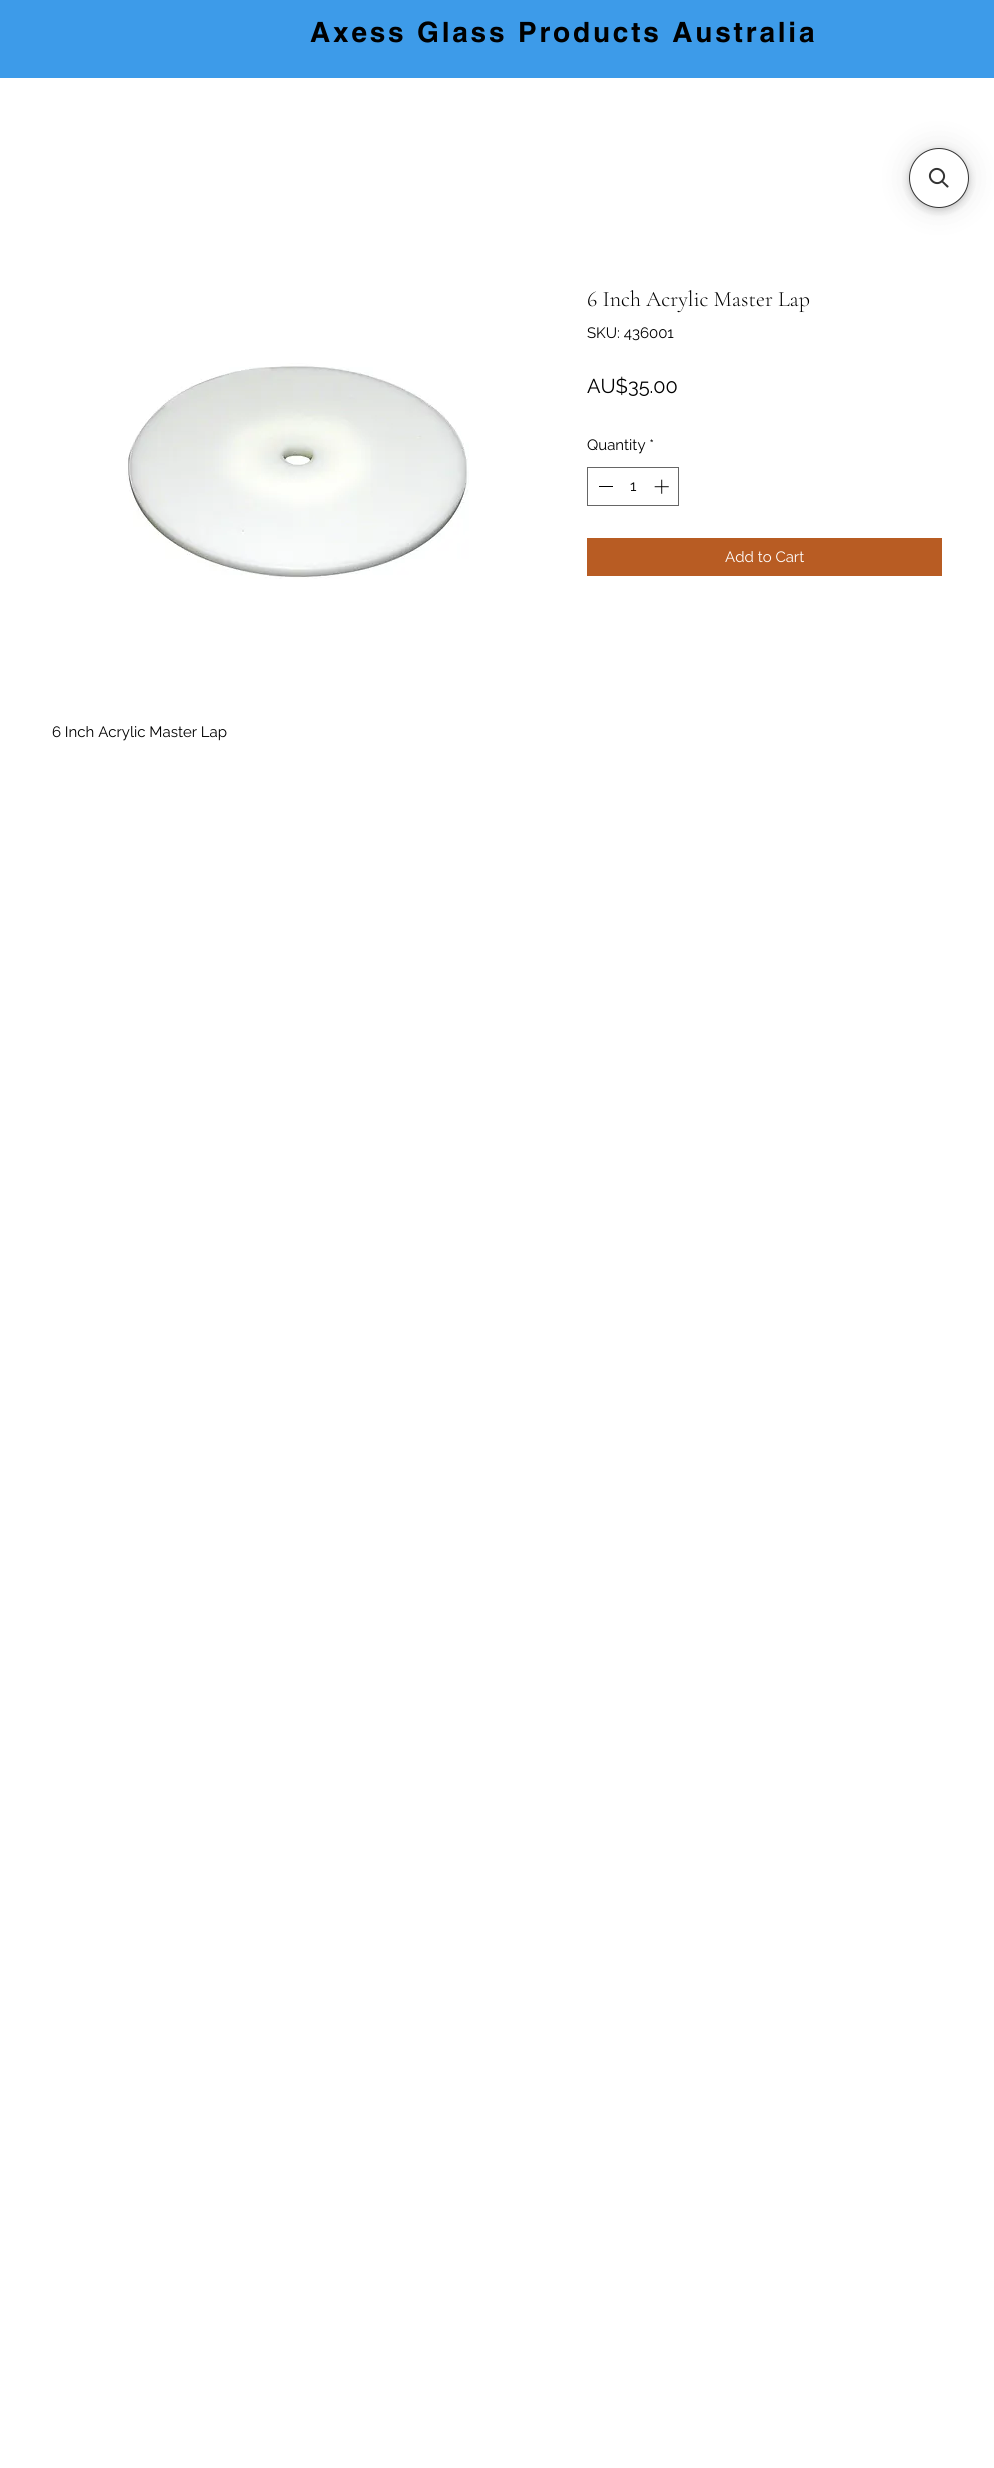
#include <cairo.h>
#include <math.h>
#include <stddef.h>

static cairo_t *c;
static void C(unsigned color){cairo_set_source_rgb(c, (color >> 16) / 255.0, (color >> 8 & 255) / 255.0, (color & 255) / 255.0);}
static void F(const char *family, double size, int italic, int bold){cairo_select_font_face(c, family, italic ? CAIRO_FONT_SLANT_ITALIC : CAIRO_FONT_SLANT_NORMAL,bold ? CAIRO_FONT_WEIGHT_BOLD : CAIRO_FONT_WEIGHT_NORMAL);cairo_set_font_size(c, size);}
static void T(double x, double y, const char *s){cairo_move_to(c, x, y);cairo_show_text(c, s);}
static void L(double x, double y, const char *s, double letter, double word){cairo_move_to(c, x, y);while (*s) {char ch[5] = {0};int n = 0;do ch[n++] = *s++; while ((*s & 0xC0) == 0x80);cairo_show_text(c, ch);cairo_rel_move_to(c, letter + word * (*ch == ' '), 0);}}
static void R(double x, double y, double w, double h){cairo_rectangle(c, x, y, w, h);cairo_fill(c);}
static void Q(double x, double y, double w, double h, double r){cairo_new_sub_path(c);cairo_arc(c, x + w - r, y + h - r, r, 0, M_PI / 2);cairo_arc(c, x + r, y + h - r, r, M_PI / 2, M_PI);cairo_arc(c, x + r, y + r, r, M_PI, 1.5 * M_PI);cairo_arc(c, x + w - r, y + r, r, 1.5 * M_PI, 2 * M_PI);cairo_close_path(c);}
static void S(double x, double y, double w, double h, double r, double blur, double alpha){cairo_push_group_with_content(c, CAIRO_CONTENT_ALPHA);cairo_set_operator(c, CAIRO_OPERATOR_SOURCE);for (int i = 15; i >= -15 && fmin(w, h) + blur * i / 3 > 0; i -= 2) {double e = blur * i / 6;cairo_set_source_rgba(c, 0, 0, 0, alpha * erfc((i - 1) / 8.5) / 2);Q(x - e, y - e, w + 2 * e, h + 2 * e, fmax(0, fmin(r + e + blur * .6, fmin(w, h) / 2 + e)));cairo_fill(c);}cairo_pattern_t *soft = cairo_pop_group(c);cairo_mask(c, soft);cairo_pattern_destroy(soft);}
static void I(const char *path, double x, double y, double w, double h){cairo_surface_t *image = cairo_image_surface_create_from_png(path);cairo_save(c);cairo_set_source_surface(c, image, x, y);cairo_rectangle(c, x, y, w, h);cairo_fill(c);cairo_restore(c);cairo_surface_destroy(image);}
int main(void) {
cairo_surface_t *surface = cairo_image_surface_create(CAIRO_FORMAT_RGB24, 994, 2468);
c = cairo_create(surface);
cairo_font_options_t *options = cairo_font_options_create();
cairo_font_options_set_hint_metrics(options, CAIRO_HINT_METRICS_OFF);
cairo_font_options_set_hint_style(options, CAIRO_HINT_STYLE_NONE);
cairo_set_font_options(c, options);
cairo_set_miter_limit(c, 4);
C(0xffffff);
cairo_paint(c);
C(0x3d9be9);
R(0,0,994,78);
F("helvetica",28,0,1);
C(0x000000);
L(310,42,"Axess Glass Products Australia",2.8,0);
F("Cormorant Garamond Light",22,0,0);
T(587,306,"6 Inch Acrylic Master Lap");
F("Raleway",15,0,0);
T(587,338,"SKU: 436001");
F("Raleway",20,0,0);
T(587,393,"AU$35.00");
F("Raleway",15,0,0);
T(587,450,"Quantity *");
cairo_rectangle(c,587.5,467.5,91,38);
C(0x666666);
cairo_set_line_width(c,1);
cairo_stroke(c);
C(0x000000);
R(599,486,14,1);
T(630,491,"1");
I("1.png",654,479,15,15);
C(0xb85c23);
R(587,538,355,38);
C(0xffffff);
T(725,562,"Add to Cart");
I("2.png",126,363,343,216);
C(0x000000);
T(52,737,"6 Inch Acrylic Master Lap");
C(0x000000);
S(909,152,60,60,30,4,.05);
S(909,150,60,60,30,4,.15);
S(909,148,60,60,30,15,.1);
C(0xffffff);
cairo_arc(c,939,178,29.5,0,2 * M_PI);
cairo_fill_preserve(c);
C(0x333333);
cairo_stroke(c);
cairo_new_path(c);
cairo_move_to(c,932,171);
cairo_curve_to(c,938.5,164.5,948.5,174.5,942,181);
cairo_curve_to(c,935.5,187.5,925.5,177.5,932,171);
cairo_close_path(c);
cairo_set_line_width(c,2);
cairo_stroke(c);
cairo_new_path(c);
cairo_move_to(c,941,181.5);
cairo_line_to(c,942.5,180.5);
cairo_line_to(c,948.5,186);
cairo_curve_to(c,949,187,947.5,188,947,187.5);
cairo_close_path(c);
cairo_fill(c);
cairo_surface_write_to_png(surface, "o.png");
cairo_font_options_destroy(options);
cairo_destroy(c);
cairo_surface_destroy(surface);
return 0;
}
